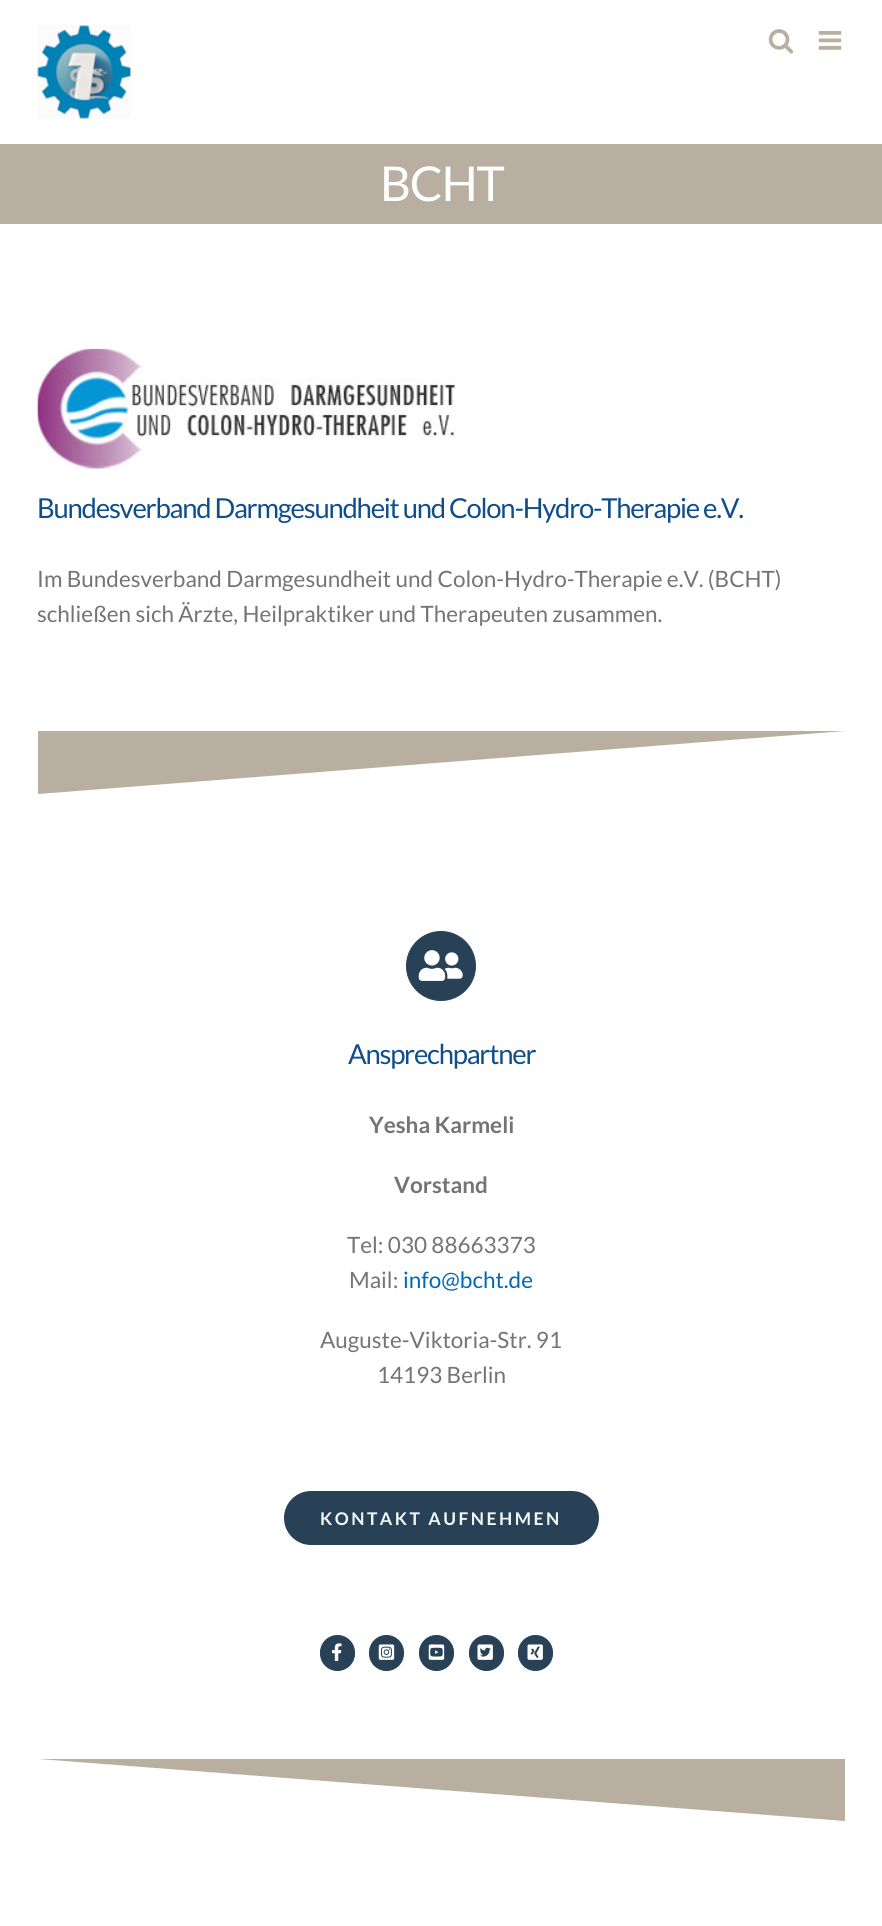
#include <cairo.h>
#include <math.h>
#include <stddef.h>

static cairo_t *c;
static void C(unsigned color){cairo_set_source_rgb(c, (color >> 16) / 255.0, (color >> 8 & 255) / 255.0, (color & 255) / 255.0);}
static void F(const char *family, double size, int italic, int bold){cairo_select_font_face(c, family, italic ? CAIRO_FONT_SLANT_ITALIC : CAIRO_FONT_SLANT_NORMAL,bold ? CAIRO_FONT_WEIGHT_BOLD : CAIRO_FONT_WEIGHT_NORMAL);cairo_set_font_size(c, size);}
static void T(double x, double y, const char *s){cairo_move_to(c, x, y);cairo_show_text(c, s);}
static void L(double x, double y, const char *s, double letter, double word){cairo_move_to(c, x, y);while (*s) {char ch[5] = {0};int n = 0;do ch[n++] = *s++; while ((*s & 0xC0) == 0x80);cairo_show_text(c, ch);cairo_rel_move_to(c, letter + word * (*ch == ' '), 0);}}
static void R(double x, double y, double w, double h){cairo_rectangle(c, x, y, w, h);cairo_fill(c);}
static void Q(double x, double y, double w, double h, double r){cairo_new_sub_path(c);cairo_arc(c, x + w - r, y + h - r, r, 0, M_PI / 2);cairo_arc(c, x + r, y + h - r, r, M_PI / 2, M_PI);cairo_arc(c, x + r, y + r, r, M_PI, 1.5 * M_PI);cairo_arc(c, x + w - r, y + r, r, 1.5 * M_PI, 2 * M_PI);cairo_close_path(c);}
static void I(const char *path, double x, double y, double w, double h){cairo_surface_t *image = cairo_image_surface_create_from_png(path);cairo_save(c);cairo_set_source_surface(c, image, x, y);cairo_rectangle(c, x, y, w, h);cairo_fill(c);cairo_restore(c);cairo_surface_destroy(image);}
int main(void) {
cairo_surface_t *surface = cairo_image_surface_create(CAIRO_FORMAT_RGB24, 882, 1926);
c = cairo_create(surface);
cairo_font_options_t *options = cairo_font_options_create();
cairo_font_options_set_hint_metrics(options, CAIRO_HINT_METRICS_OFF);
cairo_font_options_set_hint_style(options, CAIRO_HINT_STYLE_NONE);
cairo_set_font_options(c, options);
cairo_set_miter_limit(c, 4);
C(0xffffff);
cairo_paint(c);
I("1.png",37,25,95,94);
I("2.png",768,29,26,25);
I("3.png",818,31,24,19);
C(0xb9afa1);
R(0,144,882,80);
F("Lato",48,0,0);
C(0xffffff);
L(380,201,"BCHT",-1.25,0);
I("4.png",37,348,421,121);
F("Lato",27.5,0,0);
C(0x104e8b);
L(37,518,"Bundesverband Darmgesundheit und Colon-Hydro-Therapie e.V.",-1.25,0);
F("Lato",22.5,0,0);
C(0x747474);
T(37,587,"Im Bundesverband Darmgesundheit und Colon-Hydro-Therapie e.V. (BCHT)");
T(37,622,"schließen sich Ärzte, Heilpraktiker und Therapeuten zusammen.");
C(0xb9afa1);
cairo_new_path(c);
cairo_move_to(c,38,794);
cairo_line_to(c,38,731);
cairo_line_to(c,845,731);
cairo_close_path(c);
cairo_fill(c);
C(0x284156);
cairo_arc(c,441,966,34.5,0,2 * M_PI);
cairo_fill_preserve(c);
cairo_set_line_width(c,1);
cairo_stroke(c);
I("5.png",418,950,45,31);
F("Lato",27.5,0,0);
C(0x104e8b);
L(348,1064,"Ansprechpartner",-1.25,0);
F("Lato",22.5,0,1);
C(0x747474);
T(369,1133,"Yesha Karmeli");
T(394,1193,"Vorstand");
F("Lato",22.5,0,0);
T(347,1253,"Tel: 030 88663373");
T(349,1288,"Mail:");
C(0x0068b7);
T(403,1288,"info@bcht.de");
C(0x747474);
T(320,1348,"Auguste-Viktoria-Str. 91");
T(377,1383,"14193 Berlin");
C(0x284156);
Q(284,1491,315,54,27);
cairo_fill(c);
F("Lato",17.5,0,1);
C(0xf4f6f7);
L(320,1525,"KONTAKT AUFNEHMEN",2.5,0);
C(0x284156);
Q(320.5,1635.5,34,35,17);
cairo_fill_preserve(c);
cairo_stroke(c);
I("6.png",332,1643,10,18);
Q(369.5,1635.5,34,35,17);
cairo_fill_preserve(c);
cairo_stroke(c);
I("7.png",378,1644,17,16);
Q(419.5,1635.5,34,35,17);
cairo_fill_preserve(c);
cairo_stroke(c);
I("8.png",428,1644,17,16);
Q(469.5,1635.5,34,35,17);
cairo_fill_preserve(c);
cairo_stroke(c);
I("9.png",477,1644,16,16);
Q(518.5,1635.5,34,35,17);
cairo_fill_preserve(c);
cairo_stroke(c);
I("10.png",527,1644,16,16);
C(0xb9afa1);
cairo_new_path(c);
cairo_move_to(c,845,1759);
cairo_line_to(c,845,1821);
cairo_line_to(c,38,1759);
cairo_close_path(c);
cairo_fill(c);
cairo_surface_write_to_png(surface, "o.png");
cairo_font_options_destroy(options);
cairo_destroy(c);
cairo_surface_destroy(surface);
return 0;
}
